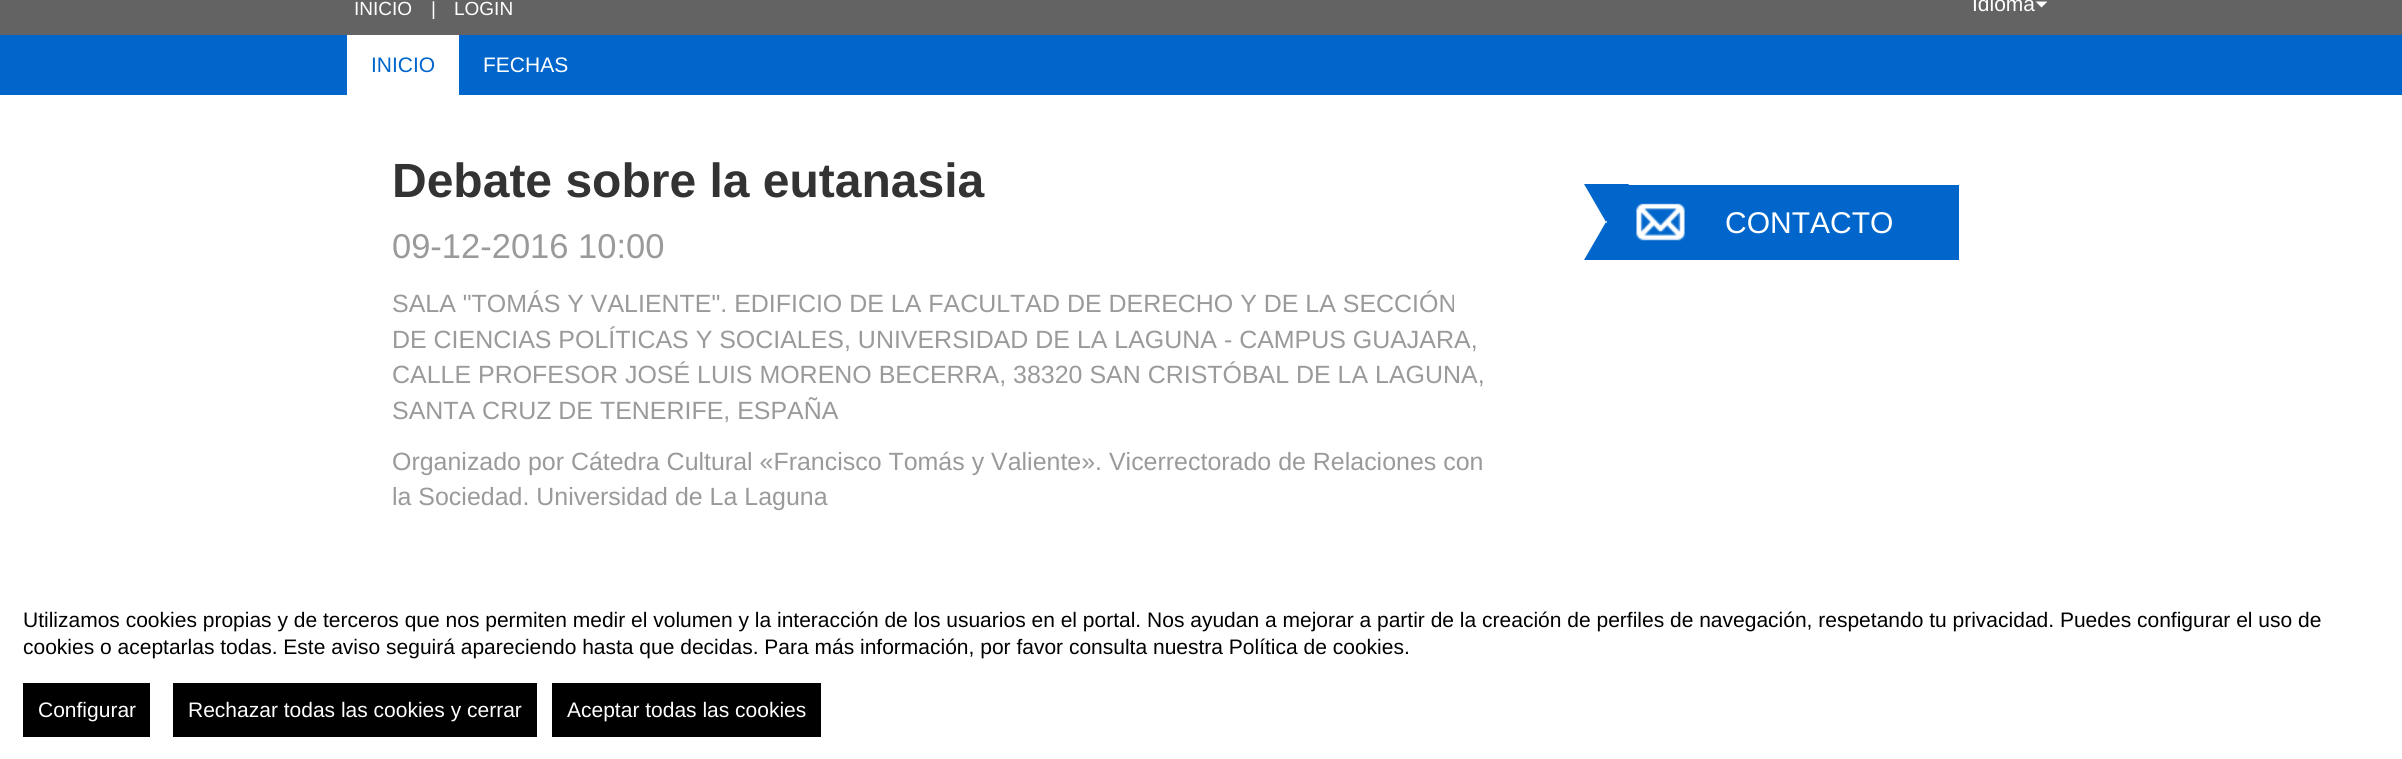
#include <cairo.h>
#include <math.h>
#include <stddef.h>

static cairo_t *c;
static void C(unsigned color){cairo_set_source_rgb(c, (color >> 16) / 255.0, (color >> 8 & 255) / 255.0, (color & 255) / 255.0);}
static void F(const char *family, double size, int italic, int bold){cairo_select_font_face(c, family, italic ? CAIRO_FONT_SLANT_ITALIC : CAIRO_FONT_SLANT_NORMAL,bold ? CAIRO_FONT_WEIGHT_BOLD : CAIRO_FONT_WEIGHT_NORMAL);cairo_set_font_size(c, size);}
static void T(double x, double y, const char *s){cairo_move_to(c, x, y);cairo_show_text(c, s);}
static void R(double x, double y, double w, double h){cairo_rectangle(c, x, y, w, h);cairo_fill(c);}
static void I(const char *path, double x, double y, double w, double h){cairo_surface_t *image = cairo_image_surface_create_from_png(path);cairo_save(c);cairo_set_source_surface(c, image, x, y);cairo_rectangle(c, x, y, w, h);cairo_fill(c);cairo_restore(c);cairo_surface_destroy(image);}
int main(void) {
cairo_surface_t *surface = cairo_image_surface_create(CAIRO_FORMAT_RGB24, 2402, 759);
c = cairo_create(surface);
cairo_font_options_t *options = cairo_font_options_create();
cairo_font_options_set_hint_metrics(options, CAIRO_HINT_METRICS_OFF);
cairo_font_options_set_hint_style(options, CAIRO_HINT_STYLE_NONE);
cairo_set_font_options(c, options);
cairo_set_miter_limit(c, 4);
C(0xffffff);
cairo_paint(c);
C(0x636363);
R(0,0,2402,35);
F("Liberation Sans",19,0,0);
C(0xffffff);
T(354,15,"INICIO");
T(431,15,"|");
T(454,15,"LOGIN");
F("Liberation Sans",21,0,0);
T(1972,11,"Idioma");
cairo_new_path(c);
cairo_move_to(c,2035.5,1.5);
cairo_line_to(c,2047.5,1.5);
cairo_line_to(c,2041.5,7.5);
cairo_close_path(c);
cairo_fill(c);
C(0x0066cc);
R(0,35,2402,60);
C(0xffffff);
R(347,35,112,60);
C(0x0066cc);
T(371,72,"INICIO");
C(0xffffff);
T(483,72,"FECHAS");
F("Liberation Sans",48,0,1);
C(0x333333);
T(392,197,"Debate sobre la eutanasia");
F("Liberation Sans",34.5,0,0);
C(0x9a9a9a);
T(392,258,"09-12-2016 10:00");
F("Liberation Sans",24.95,0,0);
T(392,312,"SALA \"TOMÁS Y VALIENTE\". EDIFICIO DE LA FACULTAD DE DERECHO Y DE LA SECCIÓN");
T(392,348,"DE CIENCIAS POLÍTICAS Y SOCIALES, UNIVERSIDAD DE LA LAGUNA - CAMPUS GUAJARA,");
T(392,383,"CALLE PROFESOR JOSÉ LUIS MORENO BECERRA, 38320 SAN CRISTÓBAL DE LA LAGUNA,");
T(392,419,"SANTA CRUZ DE TENERIFE, ESPAÑA");
T(392,470,"Organizado por Cátedra Cultural «Francisco Tomás y Valiente». Vicerrectorado de Relaciones con");
T(392,505,"la Sociedad. Universidad de La Laguna");
C(0x0066cc);
R(1629,185,330,75);
cairo_new_path(c);
cairo_move_to(c,1584,184);
cairo_line_to(c,1629,184);
cairo_line_to(c,1606,222);
cairo_close_path(c);
cairo_fill(c);
R(1607,185,22,75);
cairo_new_path(c);
cairo_move_to(c,1629,260);
cairo_line_to(c,1584,260);
cairo_line_to(c,1606,222);
cairo_close_path(c);
cairo_fill(c);
I("1.png",1636,203,49,38);
F("Liberation Sans",30,0,0);
C(0xffffff);
T(1725,233,"CONTACTO");
F("Liberation Sans",21,0,0);
C(0x000000);
T(23,627,"Utilizamos cookies propias y de terceros que nos permiten medir el volumen y la interacción de los usuarios en el portal. Nos ayudan a mejorar a partir de la creación de perfiles de navegación, respetando tu privacidad. Puedes configurar el uso de");
T(23,654,"cookies o aceptarlas todas. Este aviso seguirá apareciendo hasta que decidas. Para más información, por favor consulta nuestra Política de cookies.");
R(23,683,127,54);
C(0xffffff);
T(38,717,"Configurar");
C(0x000000);
R(173,683,364,54);
C(0xffffff);
T(188,717,"Rechazar todas las cookies y cerrar");
C(0x000000);
R(552,683,269,54);
C(0xffffff);
T(567,717,"Aceptar todas las cookies");
cairo_surface_write_to_png(surface, "o.png");
cairo_font_options_destroy(options);
cairo_destroy(c);
cairo_surface_destroy(surface);
return 0;
}
